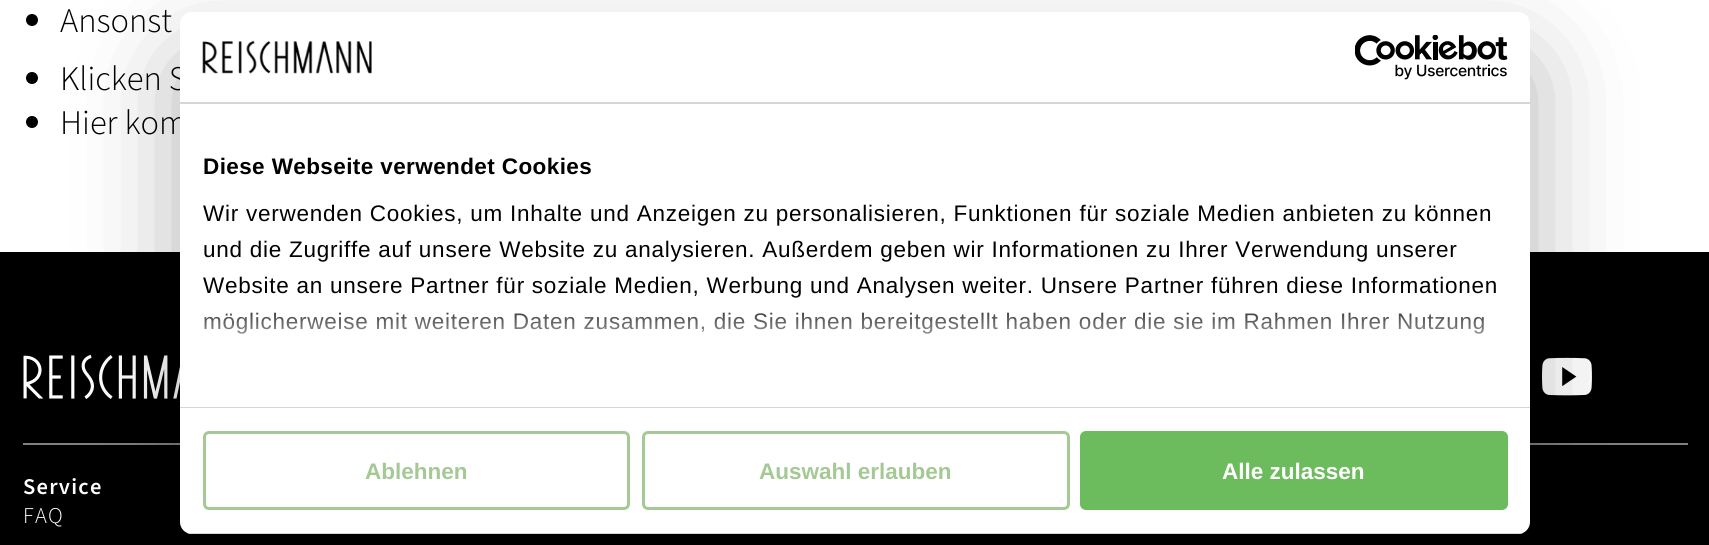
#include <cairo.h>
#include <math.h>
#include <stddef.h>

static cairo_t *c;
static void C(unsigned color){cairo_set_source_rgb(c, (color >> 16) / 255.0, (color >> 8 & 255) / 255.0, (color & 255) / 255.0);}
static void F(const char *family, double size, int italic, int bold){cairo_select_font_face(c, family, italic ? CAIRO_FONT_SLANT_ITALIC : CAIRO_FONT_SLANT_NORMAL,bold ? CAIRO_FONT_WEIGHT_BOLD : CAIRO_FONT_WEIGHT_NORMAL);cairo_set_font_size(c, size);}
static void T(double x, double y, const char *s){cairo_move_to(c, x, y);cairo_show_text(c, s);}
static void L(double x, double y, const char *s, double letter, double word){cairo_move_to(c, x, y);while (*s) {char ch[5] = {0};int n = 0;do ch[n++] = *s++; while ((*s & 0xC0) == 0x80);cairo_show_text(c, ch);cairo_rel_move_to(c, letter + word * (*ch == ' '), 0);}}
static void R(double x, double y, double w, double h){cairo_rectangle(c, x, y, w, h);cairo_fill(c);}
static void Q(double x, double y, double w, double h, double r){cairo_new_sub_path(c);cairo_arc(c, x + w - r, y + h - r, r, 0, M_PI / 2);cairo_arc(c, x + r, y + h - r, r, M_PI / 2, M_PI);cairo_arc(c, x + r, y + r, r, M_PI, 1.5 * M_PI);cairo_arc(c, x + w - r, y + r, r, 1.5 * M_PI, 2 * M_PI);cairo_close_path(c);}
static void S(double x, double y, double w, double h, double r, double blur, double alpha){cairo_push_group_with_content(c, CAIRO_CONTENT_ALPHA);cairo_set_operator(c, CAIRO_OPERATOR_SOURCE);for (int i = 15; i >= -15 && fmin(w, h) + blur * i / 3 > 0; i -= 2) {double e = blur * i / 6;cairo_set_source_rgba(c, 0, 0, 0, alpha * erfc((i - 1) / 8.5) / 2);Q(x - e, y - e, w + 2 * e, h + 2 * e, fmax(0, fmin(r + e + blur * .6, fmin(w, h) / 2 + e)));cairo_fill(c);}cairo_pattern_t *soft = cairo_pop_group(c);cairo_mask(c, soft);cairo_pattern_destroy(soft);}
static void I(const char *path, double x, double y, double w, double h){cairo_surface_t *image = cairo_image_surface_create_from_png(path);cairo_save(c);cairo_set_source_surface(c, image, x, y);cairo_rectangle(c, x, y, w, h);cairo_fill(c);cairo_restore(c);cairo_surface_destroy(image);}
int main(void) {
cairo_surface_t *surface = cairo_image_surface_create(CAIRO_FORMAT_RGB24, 1709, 545);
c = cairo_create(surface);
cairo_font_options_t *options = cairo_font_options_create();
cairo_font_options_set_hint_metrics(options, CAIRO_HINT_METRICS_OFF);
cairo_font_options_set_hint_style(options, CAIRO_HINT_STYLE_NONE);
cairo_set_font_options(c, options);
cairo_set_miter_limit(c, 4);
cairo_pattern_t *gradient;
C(0xffffff);
cairo_paint(c);
C(0x000000);
cairo_arc(c,32,20,6,0,2 * M_PI);
cairo_fill(c);
F("Source Sans 3 Light",34.5,0,0);
T(60,32,"Ansonst");
cairo_new_path(c);
cairo_arc(c,32,78,6,0,2 * M_PI);
cairo_fill(c);
T(60,90,"Klicken S");
cairo_new_path(c);
cairo_arc(c,32,122,6,0,2 * M_PI);
cairo_fill(c);
T(60,134,"Hier kom");
R(0,252,1709,293);
I("1.png",23,354,157,45);
I("2.png",1542,357,50,39);
C(0x808080);
R(23,443,1665,2);
F("Source Sans 3 SemiBold",22.5,0,0);
C(0xffffff);
L(23,494,"Service",1.25,0);
F("Source Sans 3 Light",22.5,0,0);
L(23,523,"FAQ",1.25,0);
C(0x000000);
S(180,60,1350,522,12,51,.3);
C(0xffffff);
Q(180,12,1350,522,12);
cairo_fill(c);
C(0xd6d6d6);
R(180,102,1350,2);
I("3.png",202,40,170,34);
I("4.png",1355,35,153,45);
R(180,407,1350,1);
F("Liberation Sans",22.5,0,1);
C(0x000000);
L(203,174,"Diese Webseite verwendet Cookies",.4,0);
F("Liberation Sans",22.5,0,0);
L(203,221,"Wir verwenden Cookies, um Inhalte und Anzeigen zu personalisieren, Funktionen für soziale Medien anbieten zu können",.75,0);
L(203,257,"und die Zugriffe auf unsere Website zu analysieren. Außerdem geben wir Informationen zu Ihrer Verwendung unserer",.75,0);
L(203,293,"Website an unsere Partner für soziale Medien, Werbung und Analysen weiter. Unsere Partner führen diese Informationen",.75,0);
L(203,329,"möglicherweise mit weiteren Daten zusammen, die Sie ihnen bereitgestellt haben oder die sie im Rahmen Ihrer Nutzung",.75,0);
gradient = cairo_pattern_create_linear(845,407,845,294);
cairo_pattern_add_color_stop_rgba(gradient,0,1,1,1,1);
cairo_pattern_add_color_stop_rgba(gradient,.5,1,1,1,.8);
cairo_pattern_add_color_stop_rgba(gradient,1,1,1,1,0);
cairo_set_source(c,gradient);
cairo_pattern_destroy(gradient);
R(204,296,1280,38);
cairo_save(c);
Q(180,12,1350,522,12);
cairo_clip(c);
C(0xd6d6d6);
R(180,533,1350,1);
cairo_restore(c);
Q(204.5,432.5,424,76,4.5);
C(0xa5c994);
cairo_set_line_width(c,3);
cairo_stroke(c);
F("Liberation Sans",22.5,0,1);
T(365,479,"Ablehnen");
Q(643.5,432.5,425,76,4.5);
cairo_stroke(c);
T(759,479,"Auswahl erlauben");
C(0x6cbb5c);
Q(1081.5,432.5,425,76,4.5);
cairo_fill_preserve(c);
cairo_stroke(c);
C(0xffffff);
T(1222,479,"Alle zulassen");
cairo_surface_write_to_png(surface, "o.png");
cairo_font_options_destroy(options);
cairo_destroy(c);
cairo_surface_destroy(surface);
return 0;
}
